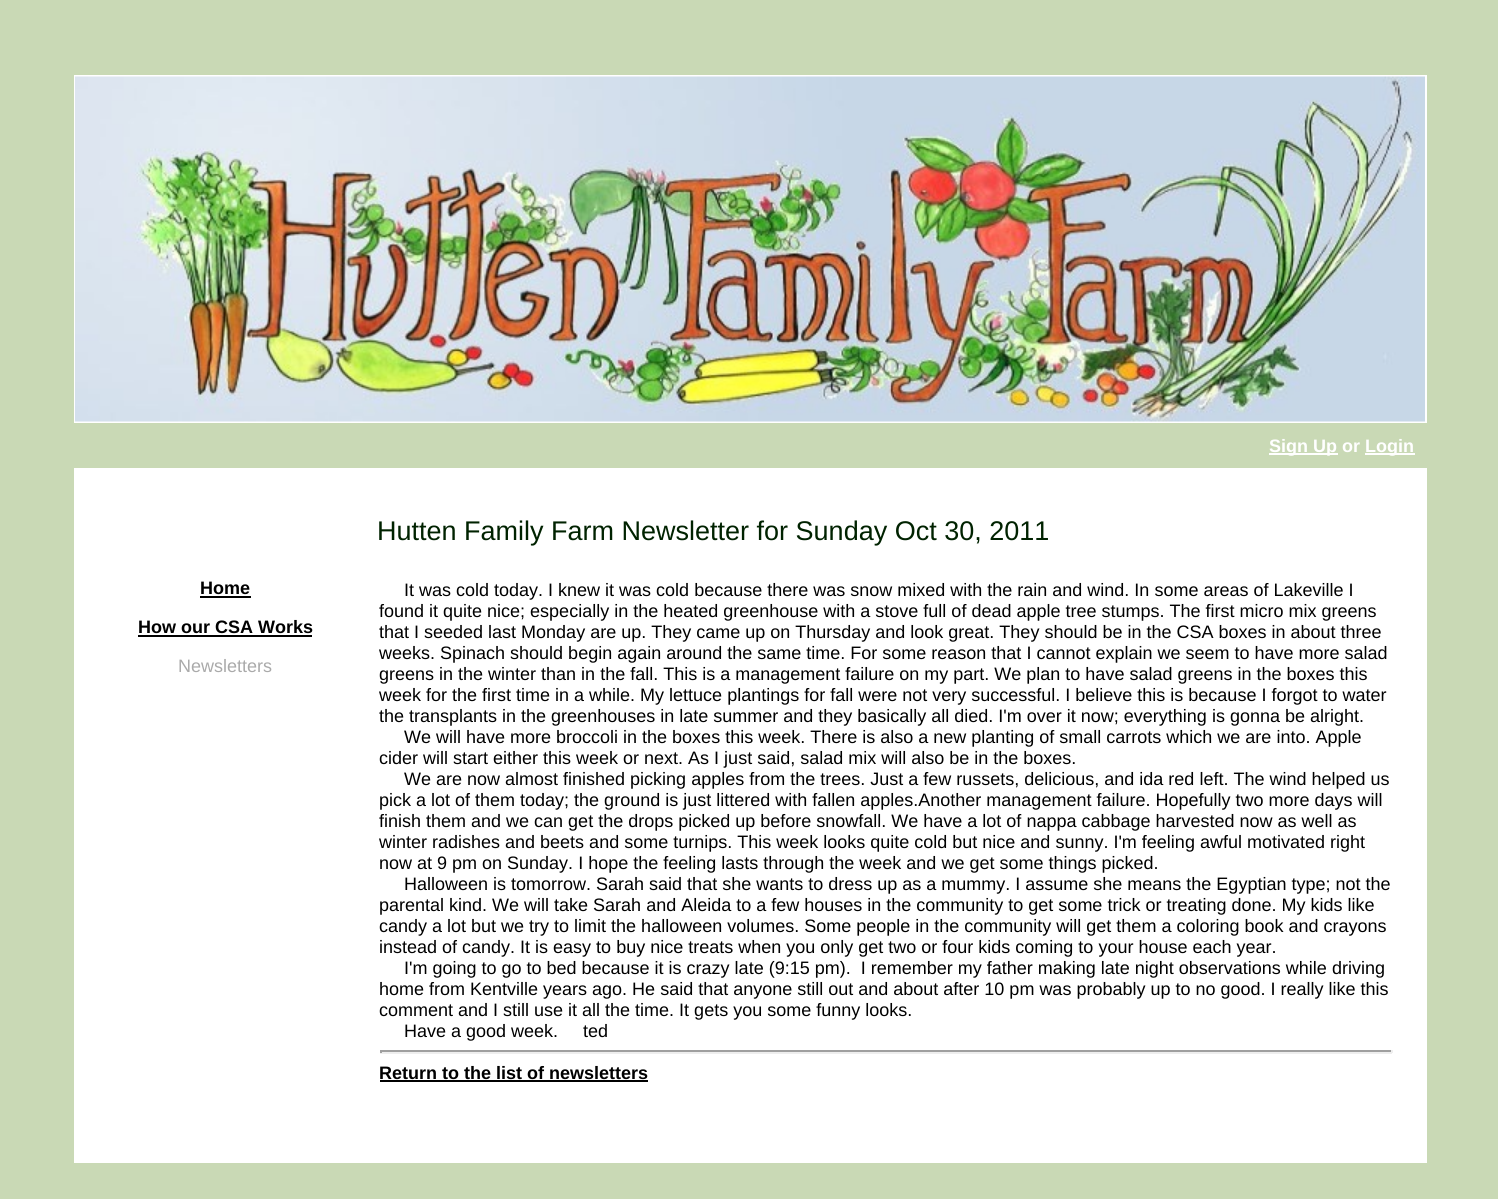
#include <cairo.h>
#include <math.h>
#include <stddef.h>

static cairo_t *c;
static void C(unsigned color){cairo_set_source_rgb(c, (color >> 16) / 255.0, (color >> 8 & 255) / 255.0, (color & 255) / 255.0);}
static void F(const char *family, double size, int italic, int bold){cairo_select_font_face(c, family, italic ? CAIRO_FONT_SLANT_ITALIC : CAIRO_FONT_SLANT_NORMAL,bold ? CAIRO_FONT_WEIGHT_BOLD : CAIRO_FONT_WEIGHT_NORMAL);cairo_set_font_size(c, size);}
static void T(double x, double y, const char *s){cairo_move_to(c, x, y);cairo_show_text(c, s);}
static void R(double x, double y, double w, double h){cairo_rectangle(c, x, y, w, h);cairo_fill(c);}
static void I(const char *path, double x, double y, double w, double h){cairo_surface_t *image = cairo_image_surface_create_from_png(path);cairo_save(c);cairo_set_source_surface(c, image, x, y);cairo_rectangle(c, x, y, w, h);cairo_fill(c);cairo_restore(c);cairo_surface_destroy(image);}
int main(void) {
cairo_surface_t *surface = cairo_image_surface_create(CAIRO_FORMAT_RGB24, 1498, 1199);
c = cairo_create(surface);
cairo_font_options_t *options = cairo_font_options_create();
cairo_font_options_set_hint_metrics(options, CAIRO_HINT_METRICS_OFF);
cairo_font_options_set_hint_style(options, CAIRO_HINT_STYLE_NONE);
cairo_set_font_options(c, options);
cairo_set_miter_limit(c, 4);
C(0xc9d9b5);
cairo_paint(c);
C(0xffffff);
R(74,75,1353,1088);
I("1.png",75,76,1350,346);
C(0xc9d9b5);
R(74,423,1353,45);
C(0xffffff);
R(1269,453,69,2);
F("Liberation Sans",18,0,1);
T(1269,452,"Sign Up or");
R(1365,453,50,2);
T(1365,452,"Login");
F("Liberation Sans",27,0,0);
C(0x002200);
T(377,540,"Hutten Family Farm Newsletter for Sunday Oct 30, 2011");
F("Liberation Sans",18,0,1);
C(0x000000);
T(200,594,"Home");
R(200,596,51,2);
T(138,633,"How our CSA Works");
R(138,635,174,2);
F("Liberation Sans",18,0,0);
C(0xaaaaaa);
T(178,672,"Newsletters");
C(0x000000);
T(404,596,"It was cold today. I knew it was cold because there was snow mixed with the rain and wind. In some areas of Lakeville I");
T(379,617,"found it quite nice; especially in the heated greenhouse with a stove full of dead apple tree stumps. The first micro mix greens");
T(379,638,"that I seeded last Monday are up. They came up on Thursday and look great. They should be in the CSA boxes in about three");
T(379,659,"weeks. Spinach should begin again around the same time. For some reason that I cannot explain we seem to have more salad");
T(379,680,"greens in the winter than in the fall. This is a management failure on my part. We plan to have salad greens in the boxes this");
T(379,701,"week for the first time in a while. My lettuce plantings for fall were not very successful. I believe this is because I forgot to water");
T(379,722,"the transplants in the greenhouses in late summer and they basically all died. I'm over it now; everything is gonna be alright.");
T(404,743,"We will have more broccoli in the boxes this week. There is also a new planting of small carrots which we are into. Apple");
T(379,764,"cider will start either this week or next. As I just said, salad mix will also be in the boxes.");
T(404,785,"We are now almost finished picking apples from the trees. Just a few russets, delicious, and ida red left. The wind helped us");
T(379,806,"pick a lot of them today; the ground is just littered with fallen apples.Another management failure. Hopefully two more days will");
T(379,827,"finish them and we can get the drops picked up before snowfall. We have a lot of nappa cabbage harvested now as well as");
T(379,848,"winter radishes and beets and some turnips. This week looks quite cold but nice and sunny. I'm feeling awful motivated right");
T(379,869,"now at 9 pm on Sunday. I hope the feeling lasts through the week and we get some things picked.");
T(404,890,"Halloween is tomorrow. Sarah said that she wants to dress up as a mummy. I assume she means the Egyptian type; not the");
T(379,911,"parental kind. We will take Sarah and Aleida to a few houses in the community to get some trick or treating done. My kids like");
T(379,932,"candy a lot but we try to limit the halloween volumes. Some people in the community will get them a coloring book and crayons");
T(379,953,"instead of candy. It is easy to buy nice treats when you only get two or four kids coming to your house each year.");
T(404,974,"I'm going to go to bed because it is crazy late (9:15 pm).  I remember my father making late night observations while driving");
T(379,995,"home from Kentville years ago. He said that anyone still out and about after 10 pm was probably up to no good. I really like this");
T(379,1016,"comment and I still use it all the time. It gets you some funny looks.");
T(404,1037,"Have a good week.     ted");
C(0x9f9f9f);
R(380,1050,1012,2);
C(0xeeeeee);
R(1391,1050,2,3);
R(380,1052,1012,2);
C(0x9f9f9f);
R(380,1050,2,3);
F("Liberation Sans",18,0,1);
C(0x000000);
T(379,1079,"Return to the list of newsletters");
R(380,1080,268,2);
cairo_surface_write_to_png(surface, "o.png");
cairo_font_options_destroy(options);
cairo_destroy(c);
cairo_surface_destroy(surface);
return 0;
}
